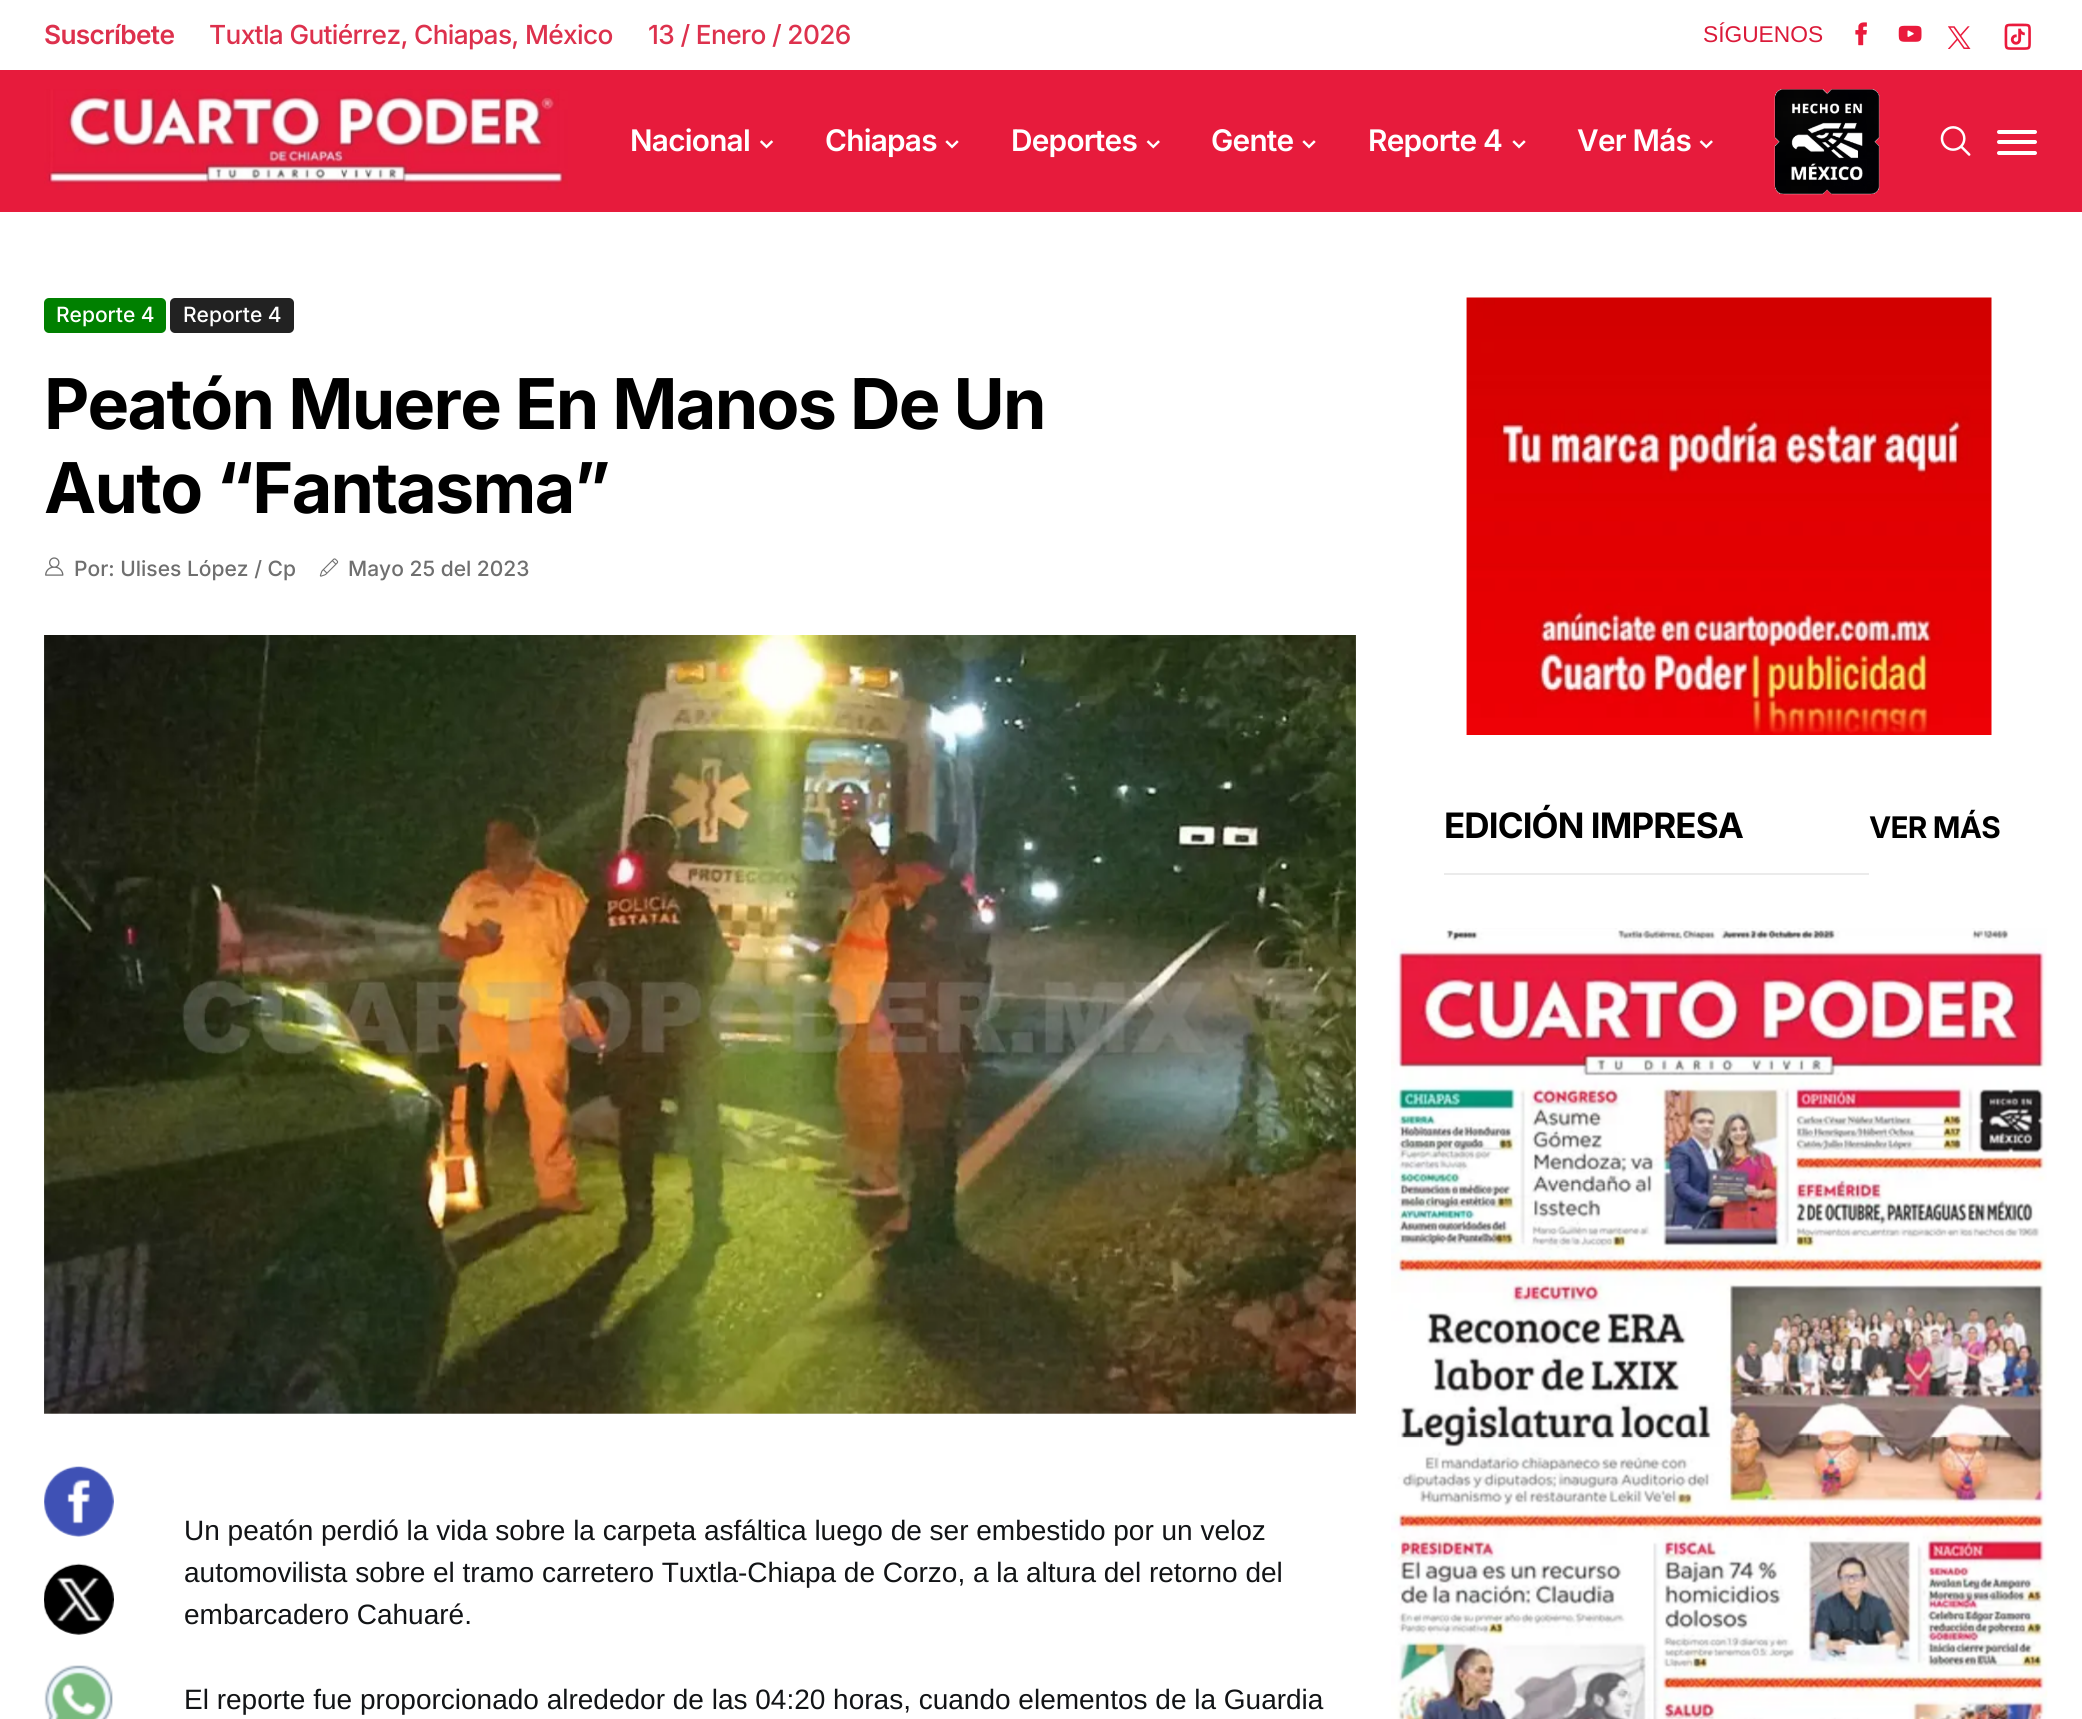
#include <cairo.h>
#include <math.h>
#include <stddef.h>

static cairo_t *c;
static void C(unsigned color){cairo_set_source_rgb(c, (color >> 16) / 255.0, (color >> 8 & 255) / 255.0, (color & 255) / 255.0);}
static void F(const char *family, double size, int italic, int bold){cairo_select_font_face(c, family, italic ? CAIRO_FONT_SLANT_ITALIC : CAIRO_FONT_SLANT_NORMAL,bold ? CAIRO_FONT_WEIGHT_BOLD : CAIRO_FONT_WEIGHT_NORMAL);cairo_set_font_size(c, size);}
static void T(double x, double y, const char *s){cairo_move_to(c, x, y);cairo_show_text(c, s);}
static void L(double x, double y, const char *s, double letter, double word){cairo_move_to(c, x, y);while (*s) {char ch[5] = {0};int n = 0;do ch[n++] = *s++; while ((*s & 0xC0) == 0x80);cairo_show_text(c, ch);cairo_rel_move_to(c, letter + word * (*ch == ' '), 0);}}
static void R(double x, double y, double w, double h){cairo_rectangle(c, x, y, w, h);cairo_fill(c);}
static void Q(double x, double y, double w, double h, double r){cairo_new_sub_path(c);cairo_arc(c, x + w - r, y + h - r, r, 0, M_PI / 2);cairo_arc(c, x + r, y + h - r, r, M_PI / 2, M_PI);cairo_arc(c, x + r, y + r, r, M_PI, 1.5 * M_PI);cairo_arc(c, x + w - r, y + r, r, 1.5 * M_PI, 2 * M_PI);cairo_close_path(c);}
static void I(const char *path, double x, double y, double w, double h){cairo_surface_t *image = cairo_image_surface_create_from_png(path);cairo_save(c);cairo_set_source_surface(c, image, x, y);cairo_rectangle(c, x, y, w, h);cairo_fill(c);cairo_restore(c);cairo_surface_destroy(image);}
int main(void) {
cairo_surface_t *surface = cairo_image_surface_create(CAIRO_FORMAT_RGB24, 2082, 1719);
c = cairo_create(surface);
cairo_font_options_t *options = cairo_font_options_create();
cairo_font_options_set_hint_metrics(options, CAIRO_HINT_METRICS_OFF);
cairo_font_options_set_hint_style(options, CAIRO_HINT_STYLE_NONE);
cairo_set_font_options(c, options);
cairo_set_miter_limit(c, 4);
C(0xffffff);
cairo_paint(c);
F("Inter SemiBold",26.25,0,0);
C(0xdd314d);
L(44,44,"Suscríbete",-.65,0);
F("Inter Medium",26.25,0,0);
L(209,44,"Tuxtla Gutiérrez, Chiapas, México",-.65,0);
L(648,44,"13 / Enero / 2026",-.65,0);
F("Arimo",22.75,0,0);
C(0xdb1a39);
T(1703,42,"SÍGUENOS");
I("1.png",1855,22,12,24);
I("2.png",1898,25,24,17);
I("3.png",1948,26,23,23);
I("4.png",2004,23,27,27);
C(0xe71b3c);
R(0,70,2082,142);
I("5.png",44,89,524,101);
F("Inter SemiBold",29.75,0,0);
C(0xffffff);
L(630,151,"Nacional",-.75,0);
I("6.png",760,140,14,9);
L(825,151,"Chiapas",-.75,0);
I("7.png",945,140,14,9);
L(1011,151,"Deportes",-.75,0);
I("8.png",1146,140,14,9);
L(1211,151,"Gente",-.75,0);
I("7.png",1302,140,14,9);
L(1368,151,"Reporte 4",-.75,0);
I("7.png",1512,140,14,9);
L(1577,151,"Ver Más",-.75,0);
I("8.png",1699,140,14,9);
I("9.png",1774,89,106,106);
I("10.png",1940,126,31,30);
Q(1997,130,40,4,2);
cairo_fill(c);
Q(1997,140,40,4,2);
cairo_fill(c);
Q(1997,151,40,4,2);
cairo_fill(c);
C(0x008000);
Q(44,298,122,35,5);
cairo_fill(c);
F("Inter Medium",21,0,0);
C(0xffffff);
T(56,322,"Reporte 4");
C(0x222222);
Q(170,298,124,35,5);
cairo_fill(c);
C(0xffffff);
T(183,322,"Reporte 4");
F("Inter",70,0,1);
C(0x000000);
L(44,429,"Peatón Muere En Manos De Un",-1.75,0);
L(44,513,"Auto “Fantasma”",-1.75,0);
I("11.png",45,557,19,19);
F("Inter Medium",21,0,0);
C(0x6f6f6f);
T(74,576,"Por: Ulises López / Cp");
I("12.png",319,558,20,19);
T(348,576,"Mayo 25 del 2023");
I("13.png",44,635,1312,779);
I("14.png",44,1466,70,71);
I("15.png",44,1563,70,72);
I("16.png",44,1665,69,54);
F("Arimo",28,0,0);
C(0x121416);
T(184,1540,"Un peatón perdió la vida sobre la carpeta asfáltica luego de ser embestido por un veloz");
T(184,1582,"automovilista sobre el tramo carretero Tuxtla-Chiapa de Corzo, a la altura del retorno del");
T(184,1624,"embarcadero Cahuaré.");
T(184,1709,"El reporte fue proporcionado alrededor de las 04:20 horas, cuando elementos de la Guardia");
I("17.png",1466,297,526,438);
C(0xebebeb);
R(1444,873,425,2);
F("Inter",35,0,1);
C(0x000000);
L(1444,838,"EDICIÓN IMPRESA",-.9,0);
F("Inter",29.75,0,1);
L(1869,838,"VER MÁS",-.75,0);
I("18.png",1391,928,657,791);
cairo_surface_write_to_png(surface, "o.png");
cairo_font_options_destroy(options);
cairo_destroy(c);
cairo_surface_destroy(surface);
return 0;
}
